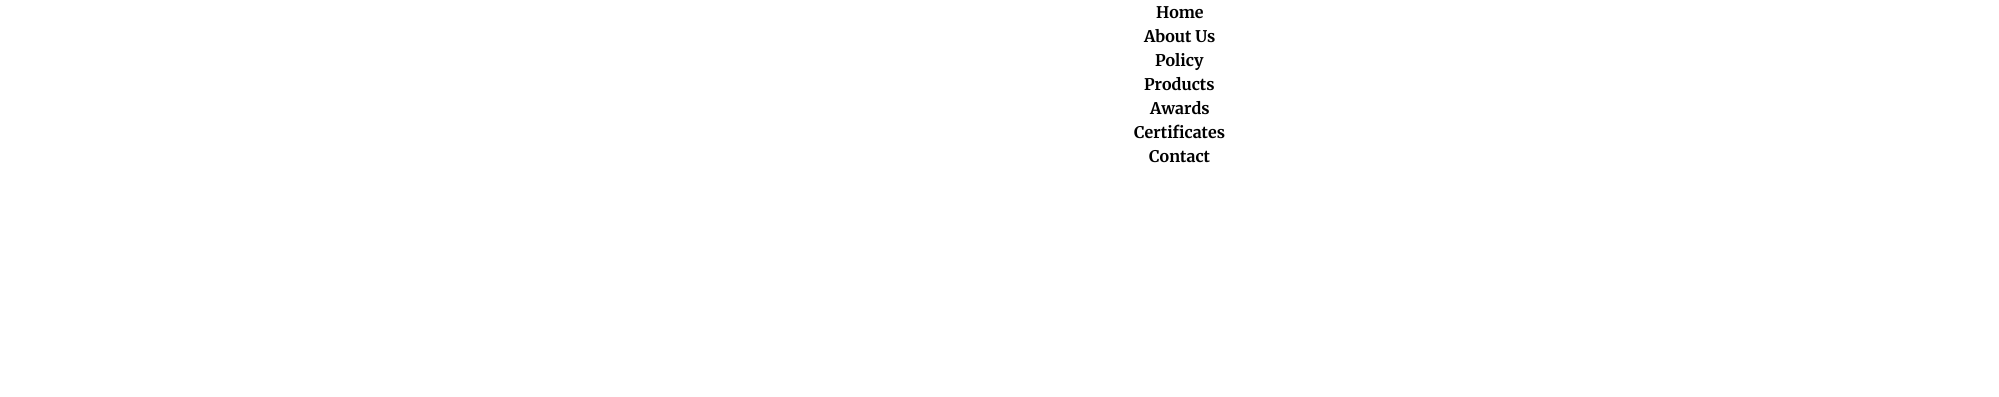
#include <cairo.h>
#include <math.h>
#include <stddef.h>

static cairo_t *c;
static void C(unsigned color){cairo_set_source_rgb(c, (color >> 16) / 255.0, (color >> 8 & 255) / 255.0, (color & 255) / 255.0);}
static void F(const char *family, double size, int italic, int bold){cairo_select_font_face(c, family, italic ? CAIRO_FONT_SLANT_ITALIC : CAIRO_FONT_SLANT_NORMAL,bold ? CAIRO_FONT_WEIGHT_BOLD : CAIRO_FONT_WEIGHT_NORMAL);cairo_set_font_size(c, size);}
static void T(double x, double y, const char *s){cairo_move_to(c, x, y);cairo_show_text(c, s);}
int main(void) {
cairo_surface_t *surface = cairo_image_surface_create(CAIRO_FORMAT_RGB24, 1999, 397);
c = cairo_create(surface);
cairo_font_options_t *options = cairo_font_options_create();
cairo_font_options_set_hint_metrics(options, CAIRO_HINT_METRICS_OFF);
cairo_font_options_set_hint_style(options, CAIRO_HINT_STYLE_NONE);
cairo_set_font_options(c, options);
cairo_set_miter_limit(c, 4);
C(0xffffff);
cairo_paint(c);
F("Merriweather",16,0,1);
C(0x000000);
T(1156,18,"Home");
T(1144,42,"About Us");
T(1155,66,"Policy");
T(1144,90,"Products");
T(1150,114,"Awards");
T(1134,138,"Certificates");
T(1149,162,"Contact");
cairo_surface_write_to_png(surface, "o.png");
cairo_font_options_destroy(options);
cairo_destroy(c);
cairo_surface_destroy(surface);
return 0;
}
